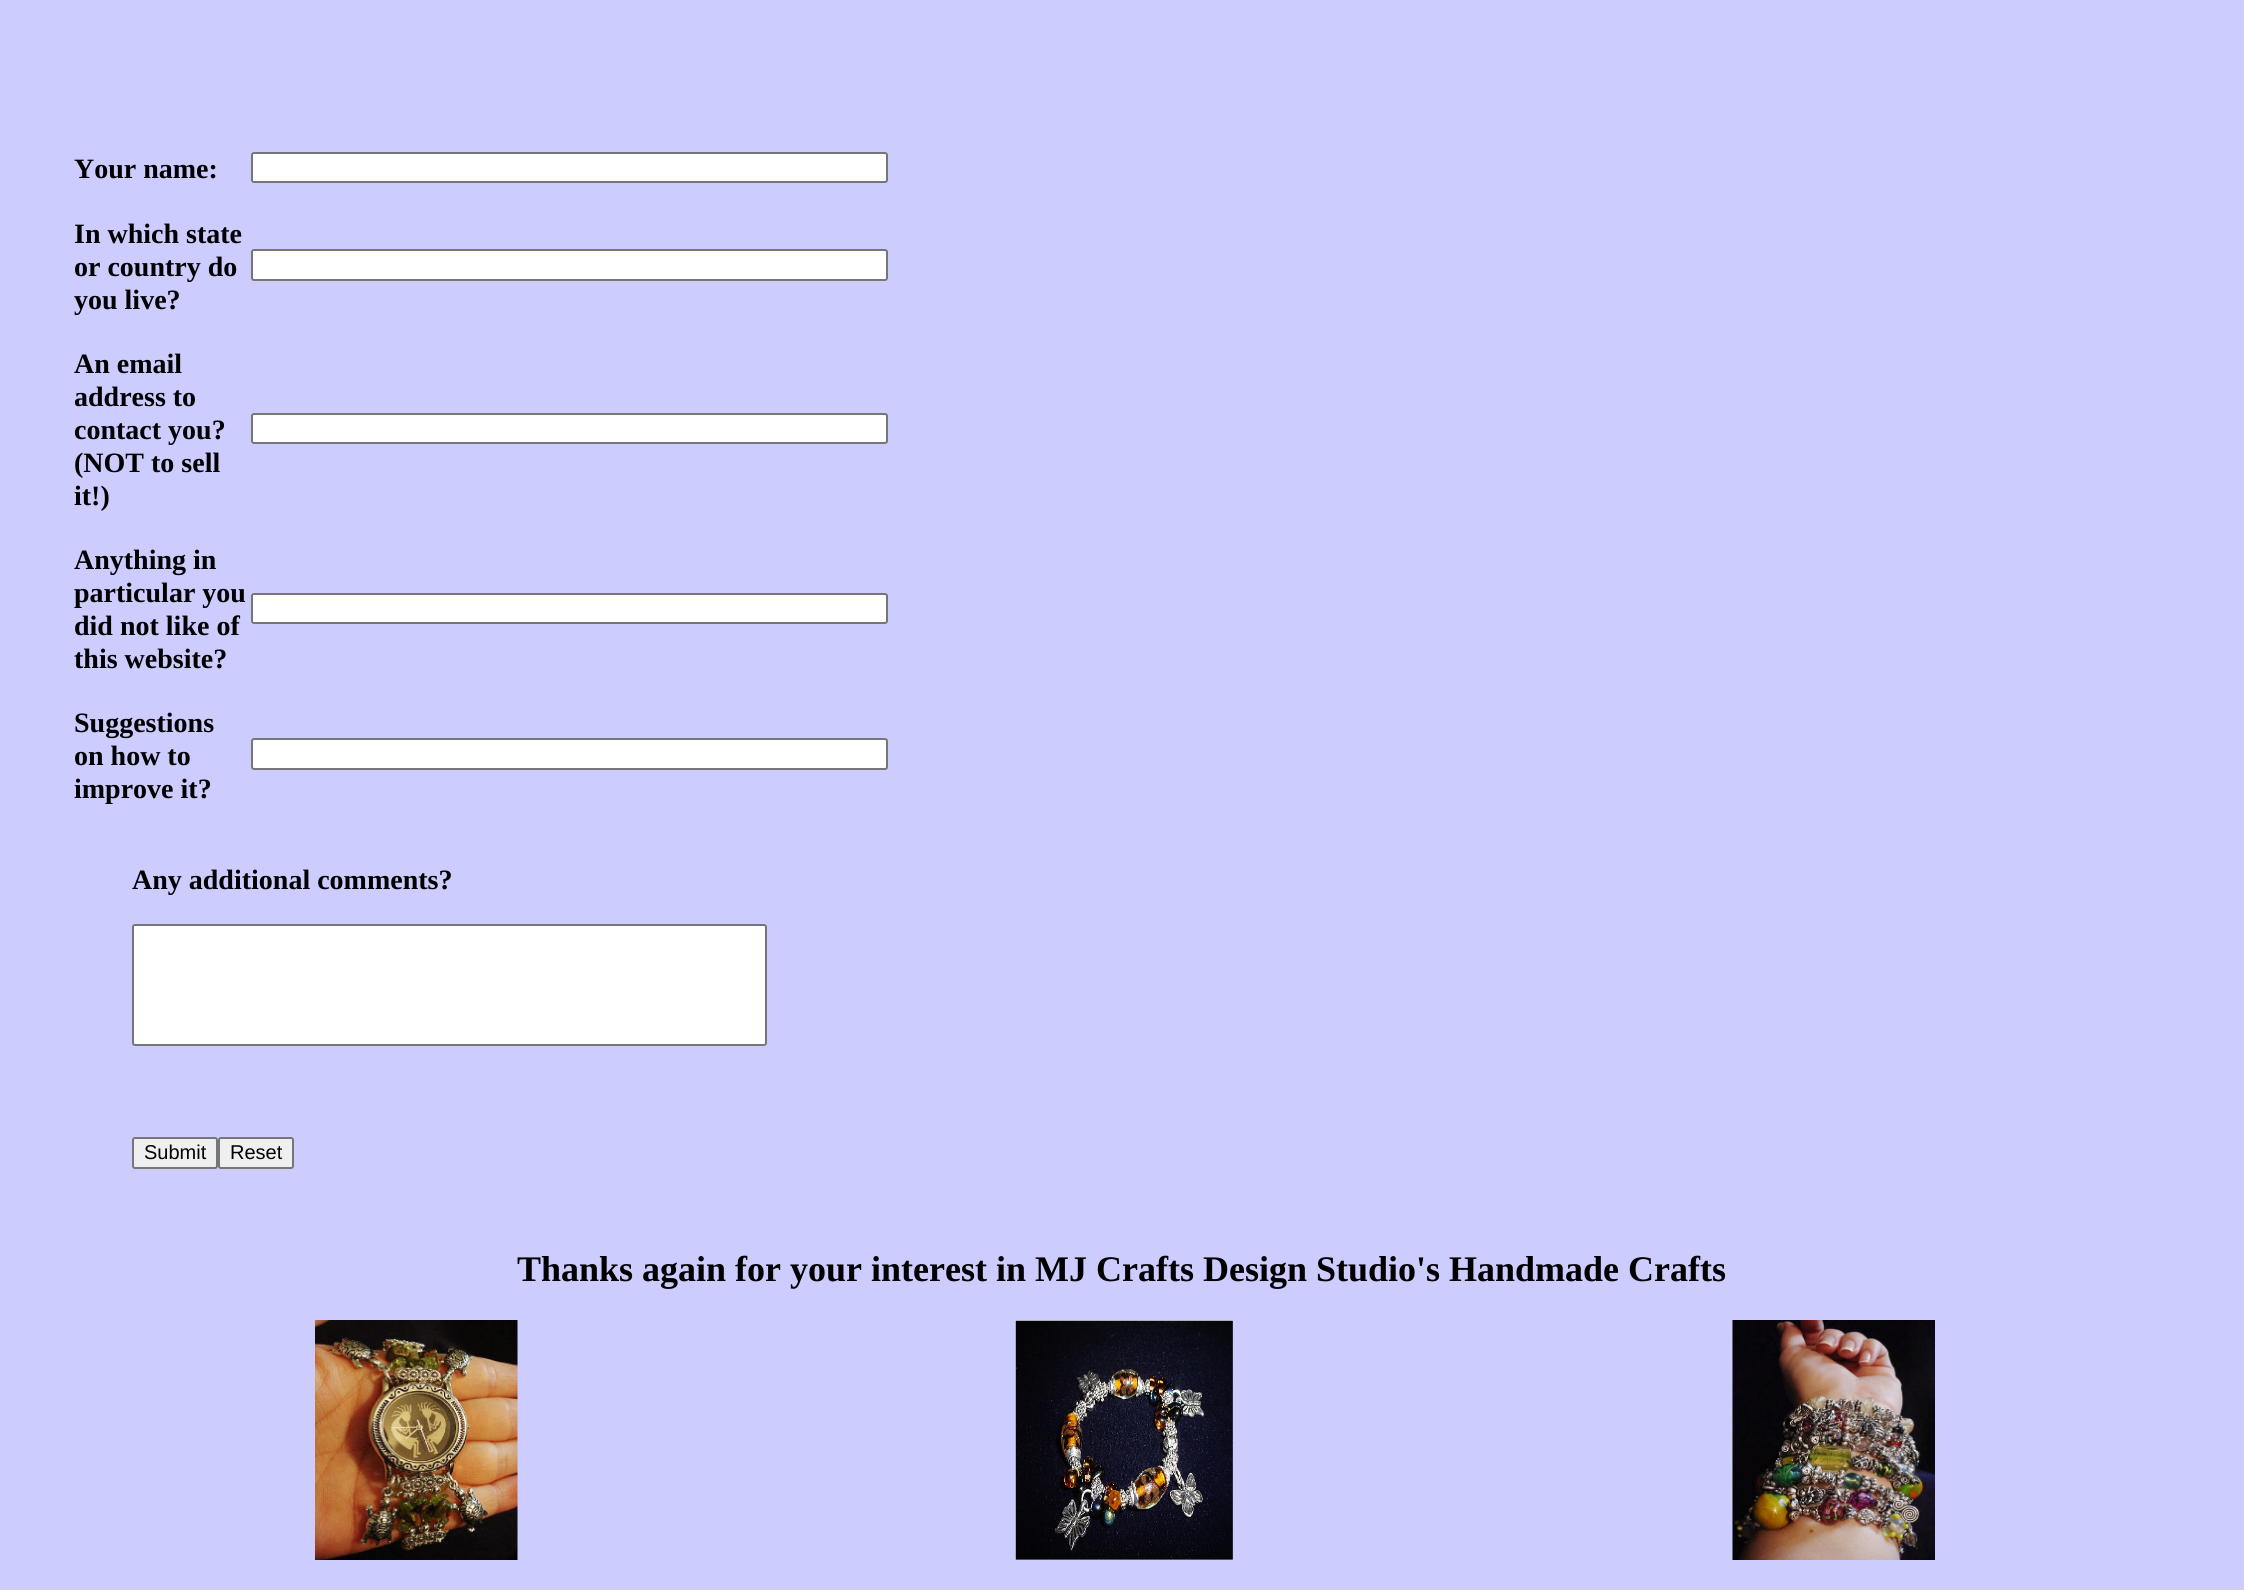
#include <cairo.h>
#include <math.h>
#include <stddef.h>

static cairo_t *c;
static void C(unsigned color){cairo_set_source_rgb(c, (color >> 16) / 255.0, (color >> 8 & 255) / 255.0, (color & 255) / 255.0);}
static void F(const char *family, double size, int italic, int bold){cairo_select_font_face(c, family, italic ? CAIRO_FONT_SLANT_ITALIC : CAIRO_FONT_SLANT_NORMAL,bold ? CAIRO_FONT_WEIGHT_BOLD : CAIRO_FONT_WEIGHT_NORMAL);cairo_set_font_size(c, size);}
static void T(double x, double y, const char *s){cairo_move_to(c, x, y);cairo_show_text(c, s);}
static void Q(double x, double y, double w, double h, double r){cairo_new_sub_path(c);cairo_arc(c, x + w - r, y + h - r, r, 0, M_PI / 2);cairo_arc(c, x + r, y + h - r, r, M_PI / 2, M_PI);cairo_arc(c, x + r, y + r, r, M_PI, 1.5 * M_PI);cairo_arc(c, x + w - r, y + r, r, 1.5 * M_PI, 2 * M_PI);cairo_close_path(c);}
static void I(const char *path, double x, double y, double w, double h){cairo_surface_t *image = cairo_image_surface_create_from_png(path);cairo_save(c);cairo_set_source_surface(c, image, x, y);cairo_rectangle(c, x, y, w, h);cairo_fill(c);cairo_restore(c);cairo_surface_destroy(image);}
int main(void) {
cairo_surface_t *surface = cairo_image_surface_create(CAIRO_FORMAT_RGB24, 2244, 1590);
c = cairo_create(surface);
cairo_font_options_t *options = cairo_font_options_create();
cairo_font_options_set_hint_metrics(options, CAIRO_HINT_METRICS_OFF);
cairo_font_options_set_hint_style(options, CAIRO_HINT_STYLE_NONE);
cairo_set_font_options(c, options);
cairo_set_miter_limit(c, 4);
C(0xccccff);
cairo_paint(c);
F("Liberation Serif",28,0,1);
C(0x000000);
T(74,178,"Your name:");
C(0xffffff);
Q(252,153,635,29,2);
cairo_fill_preserve(c);
C(0x767676);
cairo_stroke(c);
C(0x000000);
T(74,243,"In which state");
T(74,276,"or country do");
T(74,309,"you live?");
C(0xffffff);
Q(252,250,635,30,2);
cairo_fill_preserve(c);
C(0x767676);
cairo_stroke(c);
C(0x000000);
T(74,373,"An email");
T(74,406,"address to");
T(74,439,"contact you?");
T(74,472,"(NOT to sell");
T(74,505,"it!)");
C(0xffffff);
Q(252,414,635,29,2);
cairo_fill_preserve(c);
C(0x767676);
cairo_stroke(c);
C(0x000000);
T(74,569,"Anything in");
T(74,602,"particular you");
T(74,635,"did not like of");
T(74,668,"this website?");
C(0xffffff);
Q(252,594,635,29,2);
cairo_fill_preserve(c);
C(0x767676);
cairo_stroke(c);
C(0x000000);
T(74,732,"Suggestions");
T(74,765,"on how to");
T(74,798,"improve it?");
C(0xffffff);
Q(252,739,635,30,2);
cairo_fill_preserve(c);
C(0x767676);
cairo_stroke(c);
C(0x000000);
T(132,889,"Any additional comments?");
C(0xffffff);
Q(133,925,633,120,2);
cairo_fill_preserve(c);
C(0x767676);
cairo_stroke(c);
C(0xefefef);
Q(133,1138,84,30,2);
cairo_fill_preserve(c);
C(0x767676);
cairo_stroke(c);
F("Liberation Sans",20,0,0);
C(0x000000);
T(144,1159,"Submit");
C(0xefefef);
Q(219,1138,74,30,2);
cairo_fill_preserve(c);
C(0x767676);
cairo_stroke(c);
C(0x000000);
T(230,1159,"Reset");
F("Liberation Serif",36,0,1);
T(517,1281,"Thanks again for your interest in MJ Crafts Design Studio's Handmade Crafts");
I("1.png",315,1320,203,240);
I("2.png",1015,1320,218,240);
I("3.png",1732,1320,203,240);
cairo_surface_write_to_png(surface, "o.png");
cairo_font_options_destroy(options);
cairo_destroy(c);
cairo_surface_destroy(surface);
return 0;
}
